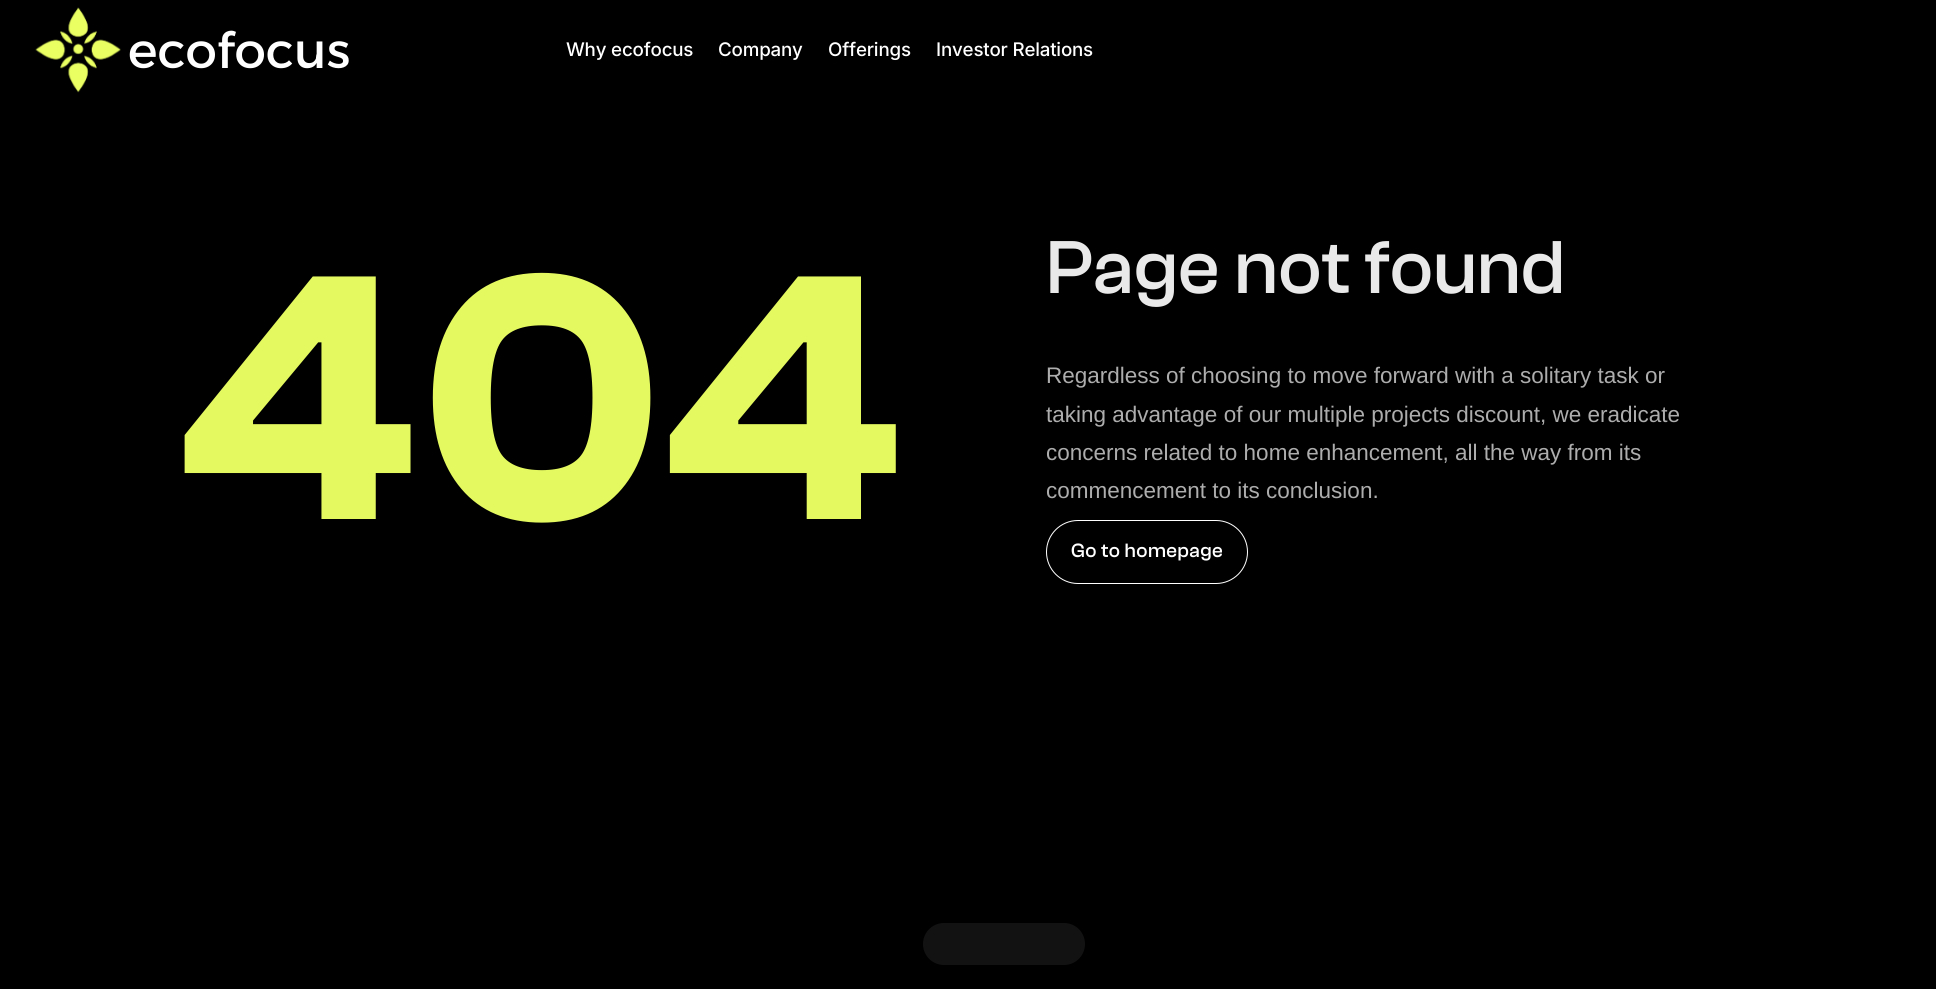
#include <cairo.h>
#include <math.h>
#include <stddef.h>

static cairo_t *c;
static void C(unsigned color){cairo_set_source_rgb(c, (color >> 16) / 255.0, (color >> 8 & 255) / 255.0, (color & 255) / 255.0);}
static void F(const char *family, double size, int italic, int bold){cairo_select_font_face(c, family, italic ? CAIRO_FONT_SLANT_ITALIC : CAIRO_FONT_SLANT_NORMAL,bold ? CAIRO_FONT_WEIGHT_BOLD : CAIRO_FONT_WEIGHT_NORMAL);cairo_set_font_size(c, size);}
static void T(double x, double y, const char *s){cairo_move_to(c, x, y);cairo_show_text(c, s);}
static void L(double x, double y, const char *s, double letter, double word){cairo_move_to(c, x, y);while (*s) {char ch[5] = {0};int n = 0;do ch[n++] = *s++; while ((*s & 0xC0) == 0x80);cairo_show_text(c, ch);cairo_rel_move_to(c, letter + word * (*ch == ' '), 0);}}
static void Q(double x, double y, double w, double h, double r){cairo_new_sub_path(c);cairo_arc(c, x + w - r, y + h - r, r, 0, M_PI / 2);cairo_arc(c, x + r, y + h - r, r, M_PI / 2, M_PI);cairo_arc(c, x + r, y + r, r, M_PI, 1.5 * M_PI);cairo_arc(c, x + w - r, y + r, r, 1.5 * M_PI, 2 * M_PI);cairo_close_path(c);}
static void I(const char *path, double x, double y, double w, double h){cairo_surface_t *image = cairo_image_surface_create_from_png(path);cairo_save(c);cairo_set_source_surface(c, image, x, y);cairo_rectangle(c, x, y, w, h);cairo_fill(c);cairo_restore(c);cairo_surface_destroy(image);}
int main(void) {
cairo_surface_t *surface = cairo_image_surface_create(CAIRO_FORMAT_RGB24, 1936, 989);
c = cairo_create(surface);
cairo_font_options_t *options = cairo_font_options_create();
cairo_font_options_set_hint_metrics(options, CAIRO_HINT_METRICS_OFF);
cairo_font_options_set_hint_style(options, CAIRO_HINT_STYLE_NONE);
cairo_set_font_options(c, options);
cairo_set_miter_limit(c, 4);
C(0x000000);
cairo_paint(c);
I("1.png",35,7,86,86);
F("Alexandria",50,0,0);
C(0xffffff);
T(128,68,"ecofocus");
F("Inter Medium",18.75,0,0);
L(566,56,"Why ecofocus",-.2,0);
L(718,56,"Company",-.2,0);
L(828,56,"Offerings",-.2,0);
L(936,56,"Investor Relations",-.2,0);
F("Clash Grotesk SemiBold",362,0,0);
C(0xe4f960);
L(181,519,"404",-3,0);
F("Clash Grotesk Medium",77.5,0,0);
C(0xe9e9e9);
T(1046,293,"Page not found");
F("Liberation Sans",22.5,0,0);
C(0xadadad);
T(1046,383,"Regardless of choosing to move forward with a solitary task or");
T(1046,422,"taking advantage of our multiple projects discount, we eradicate");
T(1046,460,"concerns related to home enhancement, all the way from its");
T(1046,498,"commencement to its conclusion.");
Q(1046.5,520.5,201,63,31.5);
C(0xffffff);
cairo_set_line_width(c,1);
cairo_stroke(c);
F("Clash Grotesk Medium",20,0,0);
L(1071,557,"Go to homepage",.4,0);
C(0x121213);
Q(923,923,162,42,21);
cairo_fill(c);
cairo_surface_write_to_png(surface, "o.png");
cairo_font_options_destroy(options);
cairo_destroy(c);
cairo_surface_destroy(surface);
return 0;
}
